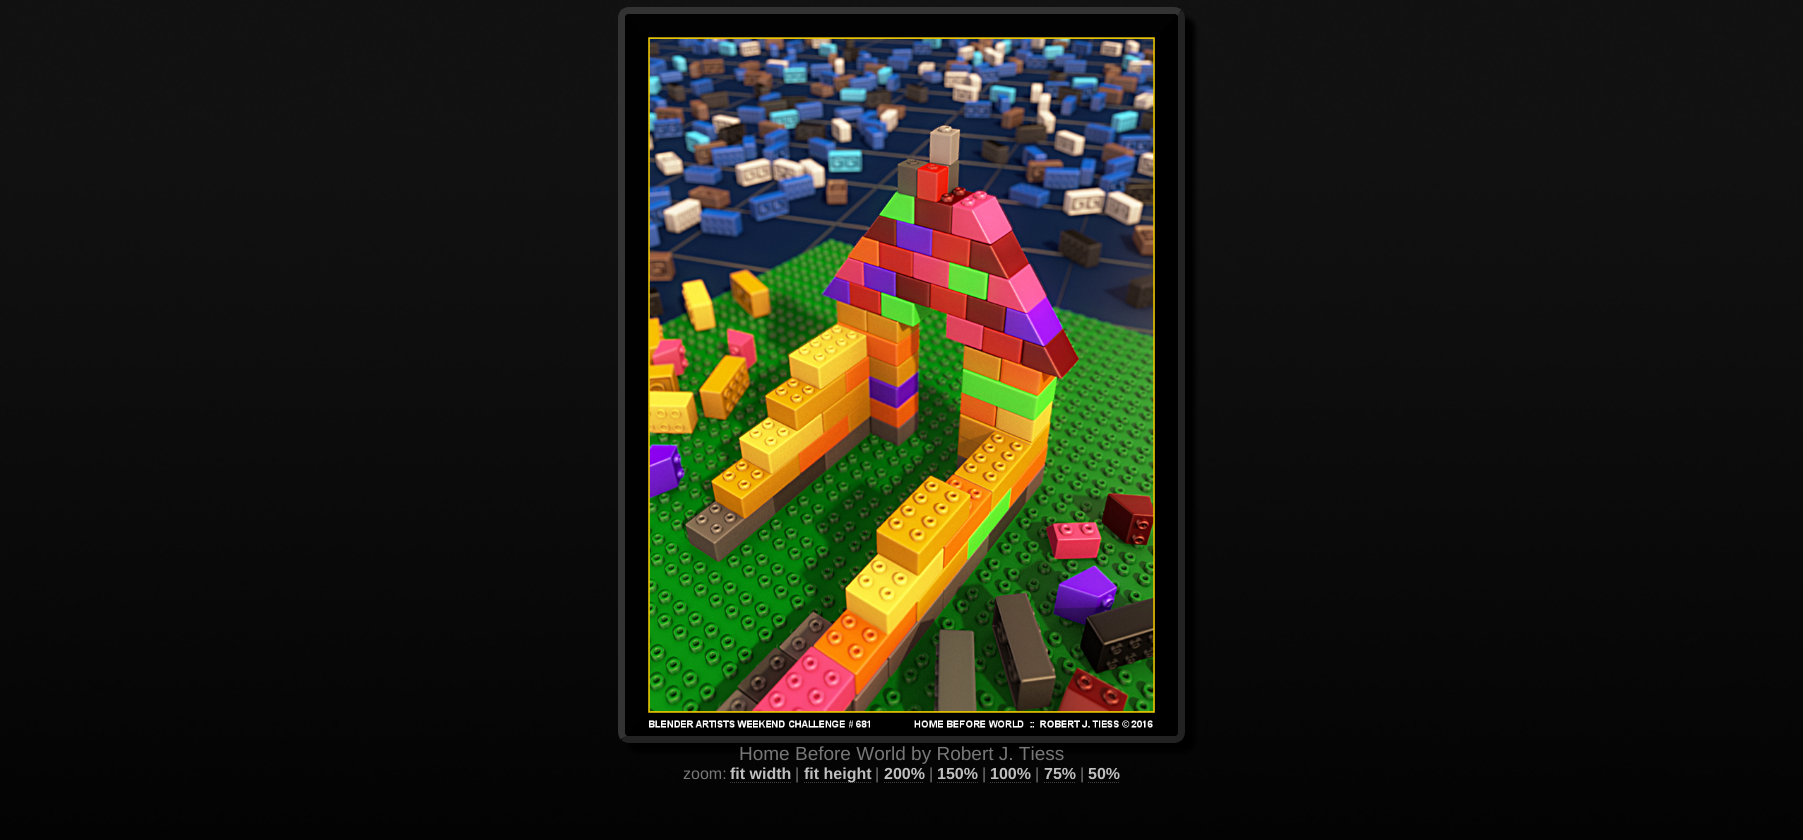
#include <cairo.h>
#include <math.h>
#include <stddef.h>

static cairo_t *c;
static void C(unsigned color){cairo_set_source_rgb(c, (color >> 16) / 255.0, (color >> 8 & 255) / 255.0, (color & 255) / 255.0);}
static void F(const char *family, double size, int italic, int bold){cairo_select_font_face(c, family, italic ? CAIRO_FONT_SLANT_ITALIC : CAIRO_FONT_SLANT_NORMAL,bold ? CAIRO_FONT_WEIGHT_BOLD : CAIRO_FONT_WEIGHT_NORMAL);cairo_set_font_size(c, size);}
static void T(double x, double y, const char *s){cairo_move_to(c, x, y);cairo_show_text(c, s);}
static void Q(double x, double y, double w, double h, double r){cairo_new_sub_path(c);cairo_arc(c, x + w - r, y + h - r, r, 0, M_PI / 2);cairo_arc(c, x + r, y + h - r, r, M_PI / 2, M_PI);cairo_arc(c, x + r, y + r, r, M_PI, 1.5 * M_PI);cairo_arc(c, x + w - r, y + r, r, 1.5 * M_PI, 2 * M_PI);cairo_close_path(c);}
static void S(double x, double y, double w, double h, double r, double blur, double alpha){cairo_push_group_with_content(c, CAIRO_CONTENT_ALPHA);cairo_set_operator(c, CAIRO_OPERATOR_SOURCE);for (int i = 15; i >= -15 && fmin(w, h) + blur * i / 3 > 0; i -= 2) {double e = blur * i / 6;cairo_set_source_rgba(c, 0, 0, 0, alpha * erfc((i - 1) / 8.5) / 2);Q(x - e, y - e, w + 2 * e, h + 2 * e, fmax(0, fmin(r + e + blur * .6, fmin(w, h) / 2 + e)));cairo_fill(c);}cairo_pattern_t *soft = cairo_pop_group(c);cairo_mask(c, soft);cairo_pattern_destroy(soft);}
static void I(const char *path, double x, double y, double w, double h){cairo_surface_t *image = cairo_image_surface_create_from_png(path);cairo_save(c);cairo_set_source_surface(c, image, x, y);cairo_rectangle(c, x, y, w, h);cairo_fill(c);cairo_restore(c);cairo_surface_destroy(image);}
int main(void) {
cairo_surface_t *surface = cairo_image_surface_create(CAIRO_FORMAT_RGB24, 1803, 840);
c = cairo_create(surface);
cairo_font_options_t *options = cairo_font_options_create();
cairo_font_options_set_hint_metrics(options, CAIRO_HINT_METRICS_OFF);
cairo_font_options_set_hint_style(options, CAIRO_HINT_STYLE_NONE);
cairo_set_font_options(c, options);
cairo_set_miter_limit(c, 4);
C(0xffffff);
cairo_paint(c);
I("1.png",0,0,1803,840);
C(0x000000);
S(628,17,567,736,11,2.5,1);
cairo_new_path(c);
cairo_move_to(c,1179.5,12.5);
cairo_curve_to(c,1180.5,14,1181.5,16,1181.5,18);
cairo_line_to(c,1181.5,732);
cairo_curve_to(c,1181.5,734,1180.5,736,1179.5,737.5);
cairo_curve_to(c,1178,738.5,1176,739.5,1174,739.5);
cairo_line_to(c,629,739.5);
cairo_curve_to(c,627,739.5,625,738.5,623.5,737.5);
C(0x222222);
cairo_set_line_width(c,7);
cairo_stroke(c);
cairo_new_path(c);
cairo_move_to(c,623.5,737.5);
cairo_curve_to(c,622.5,736,621.5,734,621.5,732);
cairo_line_to(c,621.5,18);
cairo_curve_to(c,621.5,16,622.5,14,623.5,12.5);
cairo_curve_to(c,625,11.5,627,10.5,629,10.5);
cairo_line_to(c,1174,10.5);
cairo_curve_to(c,1176,10.5,1178,11.5,1179.5,12.5);
C(0x333333);
cairo_stroke(c);
I("2.png",625,14,553,722);
F("Liberation Sans",19,0,0);
C(0x777777);
T(739,760,"Home Before World by Robert J. Tiess");
F("Liberation Sans",16,0,0);
T(683,779,"zoom:");
F("Liberation Sans",16,0,1);
C(0xc0c0c0);
T(730,779,"fit width");
cairo_new_path(c);
cairo_move_to(c,730,782.5);
cairo_line_to(c,791,782.5);
C(0x404040);
cairo_set_line_width(c,1);
cairo_set_dash(c,(double[]){1,1},2,0);
cairo_stroke(c);
F("Liberation Sans",16,0,0);
C(0x777777);
T(795,779,"|");
cairo_new_path(c);
cairo_move_to(c,804,782.5);
cairo_line_to(c,871,782.5);
C(0x404040);
cairo_stroke(c);
F("Liberation Sans",16,0,1);
C(0xc0c0c0);
T(804,779,"fit height");
F("Liberation Sans",16,0,0);
C(0x777777);
T(875,779,"|");
F("Liberation Sans",16,0,1);
C(0xc0c0c0);
T(884,779,"200%");
cairo_new_path(c);
cairo_move_to(c,884,782.5);
cairo_line_to(c,924,782.5);
C(0x404040);
cairo_stroke(c);
F("Liberation Sans",16,0,0);
C(0x777777);
T(929,779,"|");
F("Liberation Sans",16,0,1);
C(0xc0c0c0);
T(937,779,"150%");
cairo_new_path(c);
cairo_move_to(c,937,782.5);
cairo_line_to(c,978,782.5);
C(0x404040);
cairo_stroke(c);
F("Liberation Sans",16,0,0);
C(0x777777);
T(982,779,"|");
F("Liberation Sans",16,0,1);
C(0xc0c0c0);
T(990,779,"100%");
cairo_new_path(c);
cairo_move_to(c,990,782.5);
cairo_line_to(c,1031,782.5);
C(0x404040);
cairo_stroke(c);
F("Liberation Sans",16,0,0);
C(0x777777);
T(1035,779,"|");
F("Liberation Sans",16,0,1);
C(0xc0c0c0);
T(1044,779,"75%");
cairo_new_path(c);
cairo_move_to(c,1044,782.5);
cairo_line_to(c,1076,782.5);
C(0x404040);
cairo_stroke(c);
F("Liberation Sans",16,0,0);
C(0x777777);
T(1080,779,"|");
F("Liberation Sans",16,0,1);
C(0xc0c0c0);
T(1088,779,"50%");
cairo_new_path(c);
cairo_move_to(c,1088,782.5);
cairo_line_to(c,1120,782.5);
C(0x404040);
cairo_stroke(c);
cairo_surface_write_to_png(surface, "o.png");
cairo_font_options_destroy(options);
cairo_destroy(c);
cairo_surface_destroy(surface);
return 0;
}
